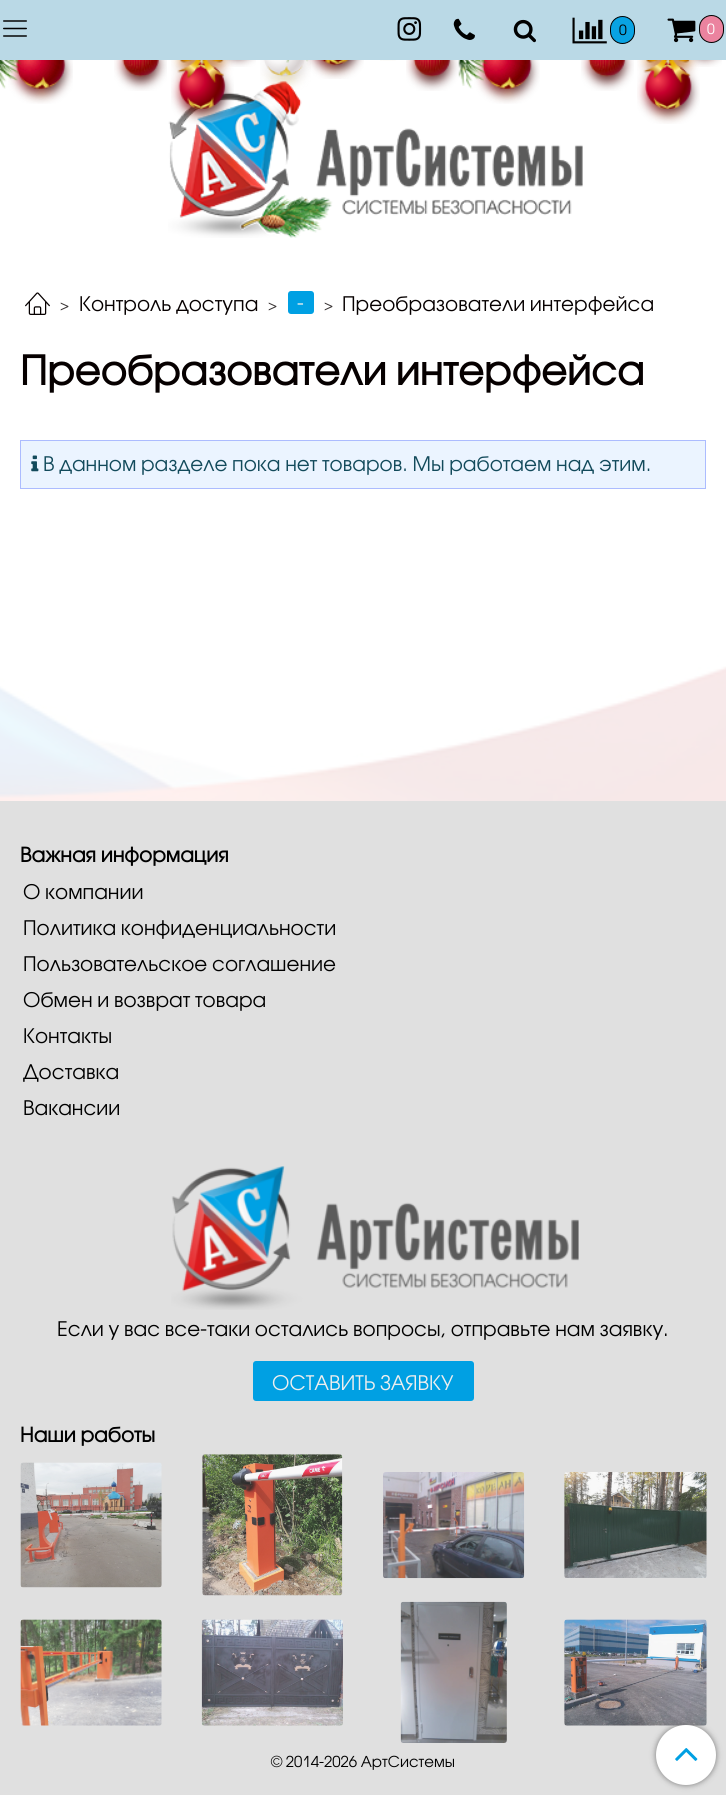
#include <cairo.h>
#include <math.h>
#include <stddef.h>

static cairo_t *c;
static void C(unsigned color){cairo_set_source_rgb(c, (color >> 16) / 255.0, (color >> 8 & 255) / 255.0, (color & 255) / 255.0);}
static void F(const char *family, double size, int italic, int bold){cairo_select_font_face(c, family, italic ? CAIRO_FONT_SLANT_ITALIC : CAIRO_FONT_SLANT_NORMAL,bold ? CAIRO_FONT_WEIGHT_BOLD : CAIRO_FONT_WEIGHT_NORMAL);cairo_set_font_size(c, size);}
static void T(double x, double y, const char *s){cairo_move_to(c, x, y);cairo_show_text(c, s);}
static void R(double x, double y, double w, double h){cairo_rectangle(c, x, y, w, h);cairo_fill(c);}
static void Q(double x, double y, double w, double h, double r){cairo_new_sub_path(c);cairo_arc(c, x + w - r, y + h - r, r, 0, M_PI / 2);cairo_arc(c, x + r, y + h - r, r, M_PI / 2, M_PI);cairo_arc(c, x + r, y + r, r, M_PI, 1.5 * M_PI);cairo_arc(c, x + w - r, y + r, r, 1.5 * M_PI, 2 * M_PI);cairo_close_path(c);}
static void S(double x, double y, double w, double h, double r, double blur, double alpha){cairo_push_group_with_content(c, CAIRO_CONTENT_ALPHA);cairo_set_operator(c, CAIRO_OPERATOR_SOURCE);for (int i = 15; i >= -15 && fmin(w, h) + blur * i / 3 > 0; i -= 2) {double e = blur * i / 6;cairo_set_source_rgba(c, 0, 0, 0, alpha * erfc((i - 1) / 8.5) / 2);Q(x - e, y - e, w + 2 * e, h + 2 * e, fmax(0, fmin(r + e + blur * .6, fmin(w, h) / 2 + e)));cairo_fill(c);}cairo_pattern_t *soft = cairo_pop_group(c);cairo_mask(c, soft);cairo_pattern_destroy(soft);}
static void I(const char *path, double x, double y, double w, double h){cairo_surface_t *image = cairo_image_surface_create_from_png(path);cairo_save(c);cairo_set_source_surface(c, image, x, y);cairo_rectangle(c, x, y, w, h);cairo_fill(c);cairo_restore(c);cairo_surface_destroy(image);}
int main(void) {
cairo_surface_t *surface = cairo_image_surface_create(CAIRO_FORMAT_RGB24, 726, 1795);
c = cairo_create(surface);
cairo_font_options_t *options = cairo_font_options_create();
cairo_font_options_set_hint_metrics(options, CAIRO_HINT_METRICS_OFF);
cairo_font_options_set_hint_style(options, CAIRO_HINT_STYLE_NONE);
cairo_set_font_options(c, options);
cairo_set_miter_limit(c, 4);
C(0xffffff);
cairo_paint(c);
I("1.png",0,655,726,146);
C(0xbad9e6);
R(0,0,726,60);
I("2.png",3,20,24,17);
I("3.png",397,17,25,24);
I("4.png",453,18,22,22);
I("5.png",513,19,23,24);
I("6.png",572,17,35,27);
C(0x09a3e3);
Q(610.5,16.5,24,27,12);
cairo_fill_preserve(c);
C(0x000000);
cairo_set_line_width(c,1);
cairo_stroke(c);
F("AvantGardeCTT",14,0,0);
T(619,35,"0");
I("7.png",667,18,29,25);
C(0xeb839f);
Q(699.5,15.5,24,27,12);
cairo_fill_preserve(c);
C(0x000000);
cairo_stroke(c);
C(0xffffff);
T(707,34,"0");
I("9.png",8,60,65,44);
I("8.png",0,60,22,29);
I("10.png",114,60,53,31);
I("24.png",168,81,415,157);
I("11.png",171,60,63,64);
I("12.png",221,60,35,7);
I("13.png",260,60,51,30);
I("15.png",307,60,57,19);
I("14.png",286,60,23,3);
I("16.png",380,60,16,1);
I("17.png",406,60,53,31);
I("18.png",458,60,9,26);
I("20.png",474,60,66,44);
I("19.png",466,60,22,29);
I("21.png",581,60,53,31);
I("22.png",637,60,63,64);
I("23.png",687,60,35,7);
cairo_set_source_rgba(c,1,1,1,0.9);
R(0,655,726,146);
I("25.png",25,292,25,23);
F("AvantGardeCTT",15,0,0);
C(0x383333);
T(60,311,">");
F("AvantGardeCTT",20,0,0);
C(0x060000);
T(79,311,"Контроль доступа");
F("AvantGardeCTT",15,0,0);
C(0x383333);
T(268,311,">");
C(0x00a0e3);
Q(288,291,26,23,3);
cairo_fill(c);
F("AvantGardeCTT",20,0,0);
C(0xeeeeee);
T(297,310,"-");
F("AvantGardeCTT",15,0,0);
C(0x383333);
T(324,311,">");
F("AvantGardeCTT",20,0,0);
C(0x060000);
T(342,311,"Преобразователи интерфейса");
F("AvantGardeCTT",40,0,1);
T(20,385,"Преобразователи интерфейса");
C(0xebf4ff);
cairo_rectangle(c,20.5,440.5,685,48);
cairo_fill_preserve(c);
C(0xacbcff);
cairo_stroke(c);
I("26.png",31,455,8,17);
F("AvantGardeCTT",20,0,0);
C(0x124a5b);
T(43,471,"В данном разделе пока нет товаров. Мы работаем над этим.");
C(0xe0e0e0);
R(0,801,726,994);
F("AvantGardeCTT",20,0,1);
C(0x000000);
T(20,862,"Важная информация");
F("AvantGardeCTT",20,0,0);
T(23,899,"О компании");
T(23,935,"Политика конфиденциальности");
T(23,971,"Пользовательское соглашение");
T(23,1007,"Обмен и возврат товара");
T(23,1043,"Контакты");
T(23,1079,"Доставка");
T(23,1115,"Вакансии");
I("27.png",171,1166,408,144);
T(57,1336,"Если у вас все-таки остались вопросы, отправьте нам заявку.");
C(0x00a0e3);
Q(253,1361,221,40,3);
cairo_fill(c);
C(0xeeeeee);
T(272,1390,"ОСТАВИТЬ ЗАЯВКУ");
F("AvantGardeCTT",20,0,1);
C(0x000000);
T(20,1442,"Наши работы");
I("28.png",20,1462,142,126);
I("29.png",202,1454,141,142);
I("30.png",383,1472,142,107);
I("31.png",564,1472,143,106);
I("32.png",20,1619,142,107);
I("33.png",201,1619,142,107);
I("34.png",400,1601,107,142);
I("35.png",564,1619,143,107);
F("AvantGardeCTT",15,0,0);
T(271,1767,"© 2014-2026 АртСистемы");
C(0x777777);
S(656,1725,60,60,30,3,1);
C(0xffffff);
cairo_arc(c,686,1755,30,0,2 * M_PI);
cairo_fill(c);
I("36.png",675,1748,23,13);
cairo_surface_write_to_png(surface, "o.png");
cairo_font_options_destroy(options);
cairo_destroy(c);
cairo_surface_destroy(surface);
return 0;
}
